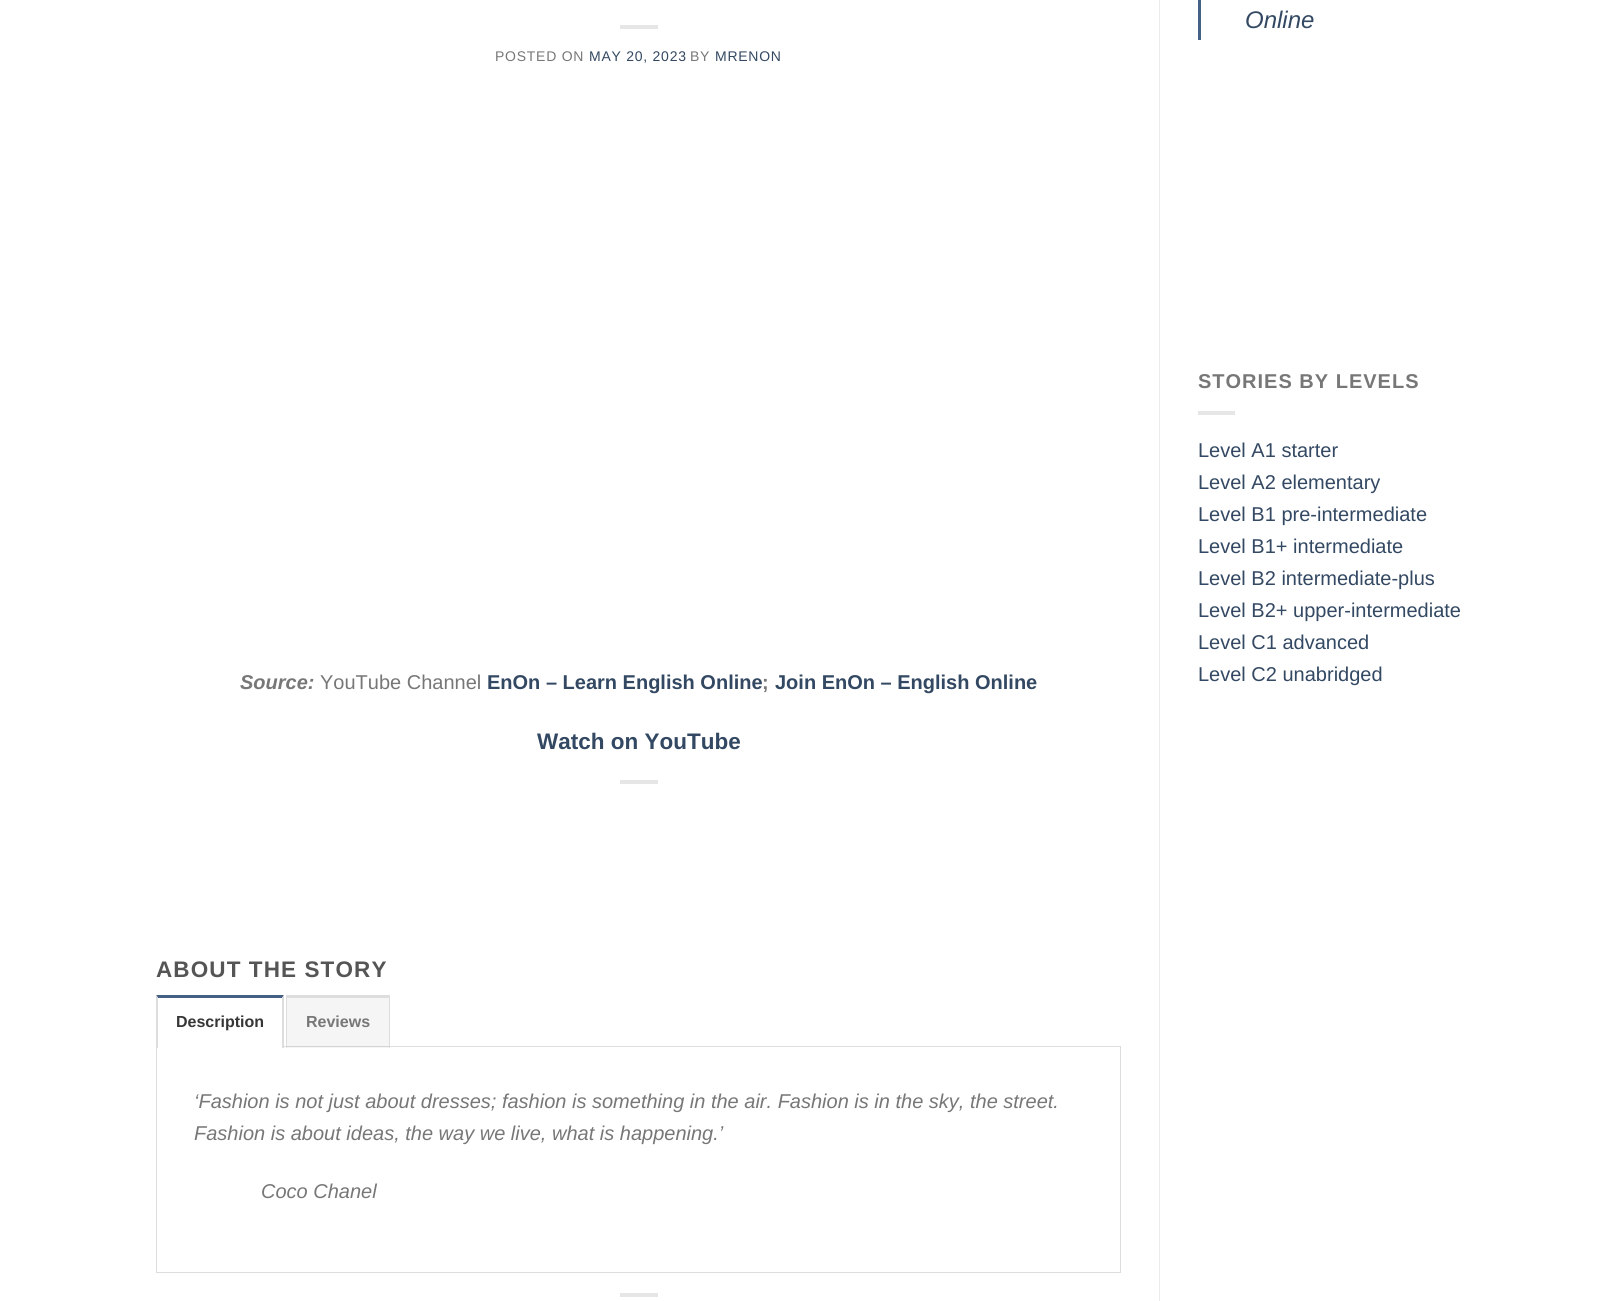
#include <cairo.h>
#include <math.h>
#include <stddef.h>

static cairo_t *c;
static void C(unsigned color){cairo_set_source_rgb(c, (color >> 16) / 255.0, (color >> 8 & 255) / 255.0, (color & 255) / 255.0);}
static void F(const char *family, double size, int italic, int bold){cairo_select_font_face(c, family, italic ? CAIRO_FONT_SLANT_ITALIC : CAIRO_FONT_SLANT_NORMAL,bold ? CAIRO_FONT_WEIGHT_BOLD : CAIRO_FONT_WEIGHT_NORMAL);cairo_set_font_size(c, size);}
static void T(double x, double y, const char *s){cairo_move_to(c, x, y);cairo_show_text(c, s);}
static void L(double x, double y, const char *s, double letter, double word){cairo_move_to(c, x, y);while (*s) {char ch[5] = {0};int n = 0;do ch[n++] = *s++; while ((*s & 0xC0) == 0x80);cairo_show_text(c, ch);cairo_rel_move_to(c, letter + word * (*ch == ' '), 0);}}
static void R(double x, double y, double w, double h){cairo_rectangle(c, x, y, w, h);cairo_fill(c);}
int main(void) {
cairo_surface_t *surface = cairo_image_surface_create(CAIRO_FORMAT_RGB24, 1623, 1301);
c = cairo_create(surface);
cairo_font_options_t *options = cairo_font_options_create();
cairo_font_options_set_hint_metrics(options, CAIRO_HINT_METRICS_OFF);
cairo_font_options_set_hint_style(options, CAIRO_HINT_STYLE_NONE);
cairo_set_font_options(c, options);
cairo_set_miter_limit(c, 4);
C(0xffffff);
cairo_paint(c);
C(0xe6e6e6);
R(620,25,38,4);
F("Liberation Sans",14,0,0);
C(0x777777);
L(495,61,"POSTED ON",.75,0);
C(0x334862);
L(589,61,"MAY 20, 2023",.75,0);
C(0x777777);
L(690,61,"BY",.75,0);
C(0x334862);
L(715,61,"MRENON",.75,0);
F("Liberation Sans",20,1,1);
C(0x777777);
T(240,689,"Source:");
F("Liberation Sans",20,0,0);
T(320,689,"YouTube Channel");
F("Liberation Sans",20,0,1);
C(0x334862);
T(487,689,"EnOn – Learn English Online");
C(0x777777);
T(762,689,";");
C(0x334862);
T(775,689,"Join EnOn – English Online");
F("Liberation Sans",22.5,0,1);
T(537,749,"Watch on YouTube");
C(0xe6e6e6);
R(620,780,38,4);
C(0x555555);
L(156,977,"ABOUT THE STORY",1.1,0);
cairo_rectangle(c,156.5,1046.5,964,226);
C(0xdddddd);
cairo_set_line_width(c,1);
cairo_stroke(c);
C(0xffffff);
R(156,1046,128,2);
C(0x446084);
cairo_new_path(c);
cairo_move_to(c,156,995);
cairo_line_to(c,284,995);
cairo_line_to(c,282,998);
cairo_line_to(c,158,998);
cairo_close_path(c);
cairo_fill(c);
C(0xdddddd);
cairo_new_path(c);
cairo_move_to(c,284,995);
cairo_line_to(c,284,1048);
cairo_line_to(c,282,1048);
cairo_line_to(c,282,998);
cairo_close_path(c);
cairo_fill(c);
cairo_new_path(c);
cairo_move_to(c,156,1048);
cairo_line_to(c,156,995);
cairo_line_to(c,158,998);
cairo_line_to(c,158,1048);
cairo_close_path(c);
cairo_fill(c);
F("Liberation Sans",16,0,1);
C(0x363636);
T(176,1027,"Description");
cairo_set_source_rgba(c,0,0,0,0.04);
R(287,998,102,50);
C(0xdddddd);
R(286,995,104,3);
R(389,995,1,53);
R(286,995,1,53);
C(0x777777);
T(306,1027,"Reviews");
F("Liberation Sans",20,1,0);
T(194,1108,"‘Fashion is not just about dresses; fashion is something in the air. Fashion is in the sky, the street.");
T(194,1140,"Fashion is about ideas, the way we live, what is happening.’");
T(261,1198,"Coco Chanel");
C(0xe6e6e6);
R(620,1293,38,4);
C(0xececec);
R(1159,0,1,1301);
C(0x446084);
R(1198,0,3,40);
F("Liberation Sans",24,1,0);
C(0x334862);
T(1245,28,"Online");
F("Liberation Sans",20,0,1);
C(0x777777);
L(1198,388,"STORIES BY LEVELS",1,0);
C(0xe6e6e6);
R(1198,411,37,4);
F("Liberation Sans",20,0,0);
C(0x334862);
T(1198,457,"Level A1 starter");
T(1198,489,"Level A2 elementary");
T(1198,521,"Level B1 pre-intermediate");
T(1198,553,"Level B1+ intermediate");
T(1198,585,"Level B2 intermediate-plus");
T(1198,617,"Level B2+ upper-intermediate");
T(1198,649,"Level C1 advanced");
T(1198,681,"Level C2 unabridged");
cairo_surface_write_to_png(surface, "o.png");
cairo_font_options_destroy(options);
cairo_destroy(c);
cairo_surface_destroy(surface);
return 0;
}
